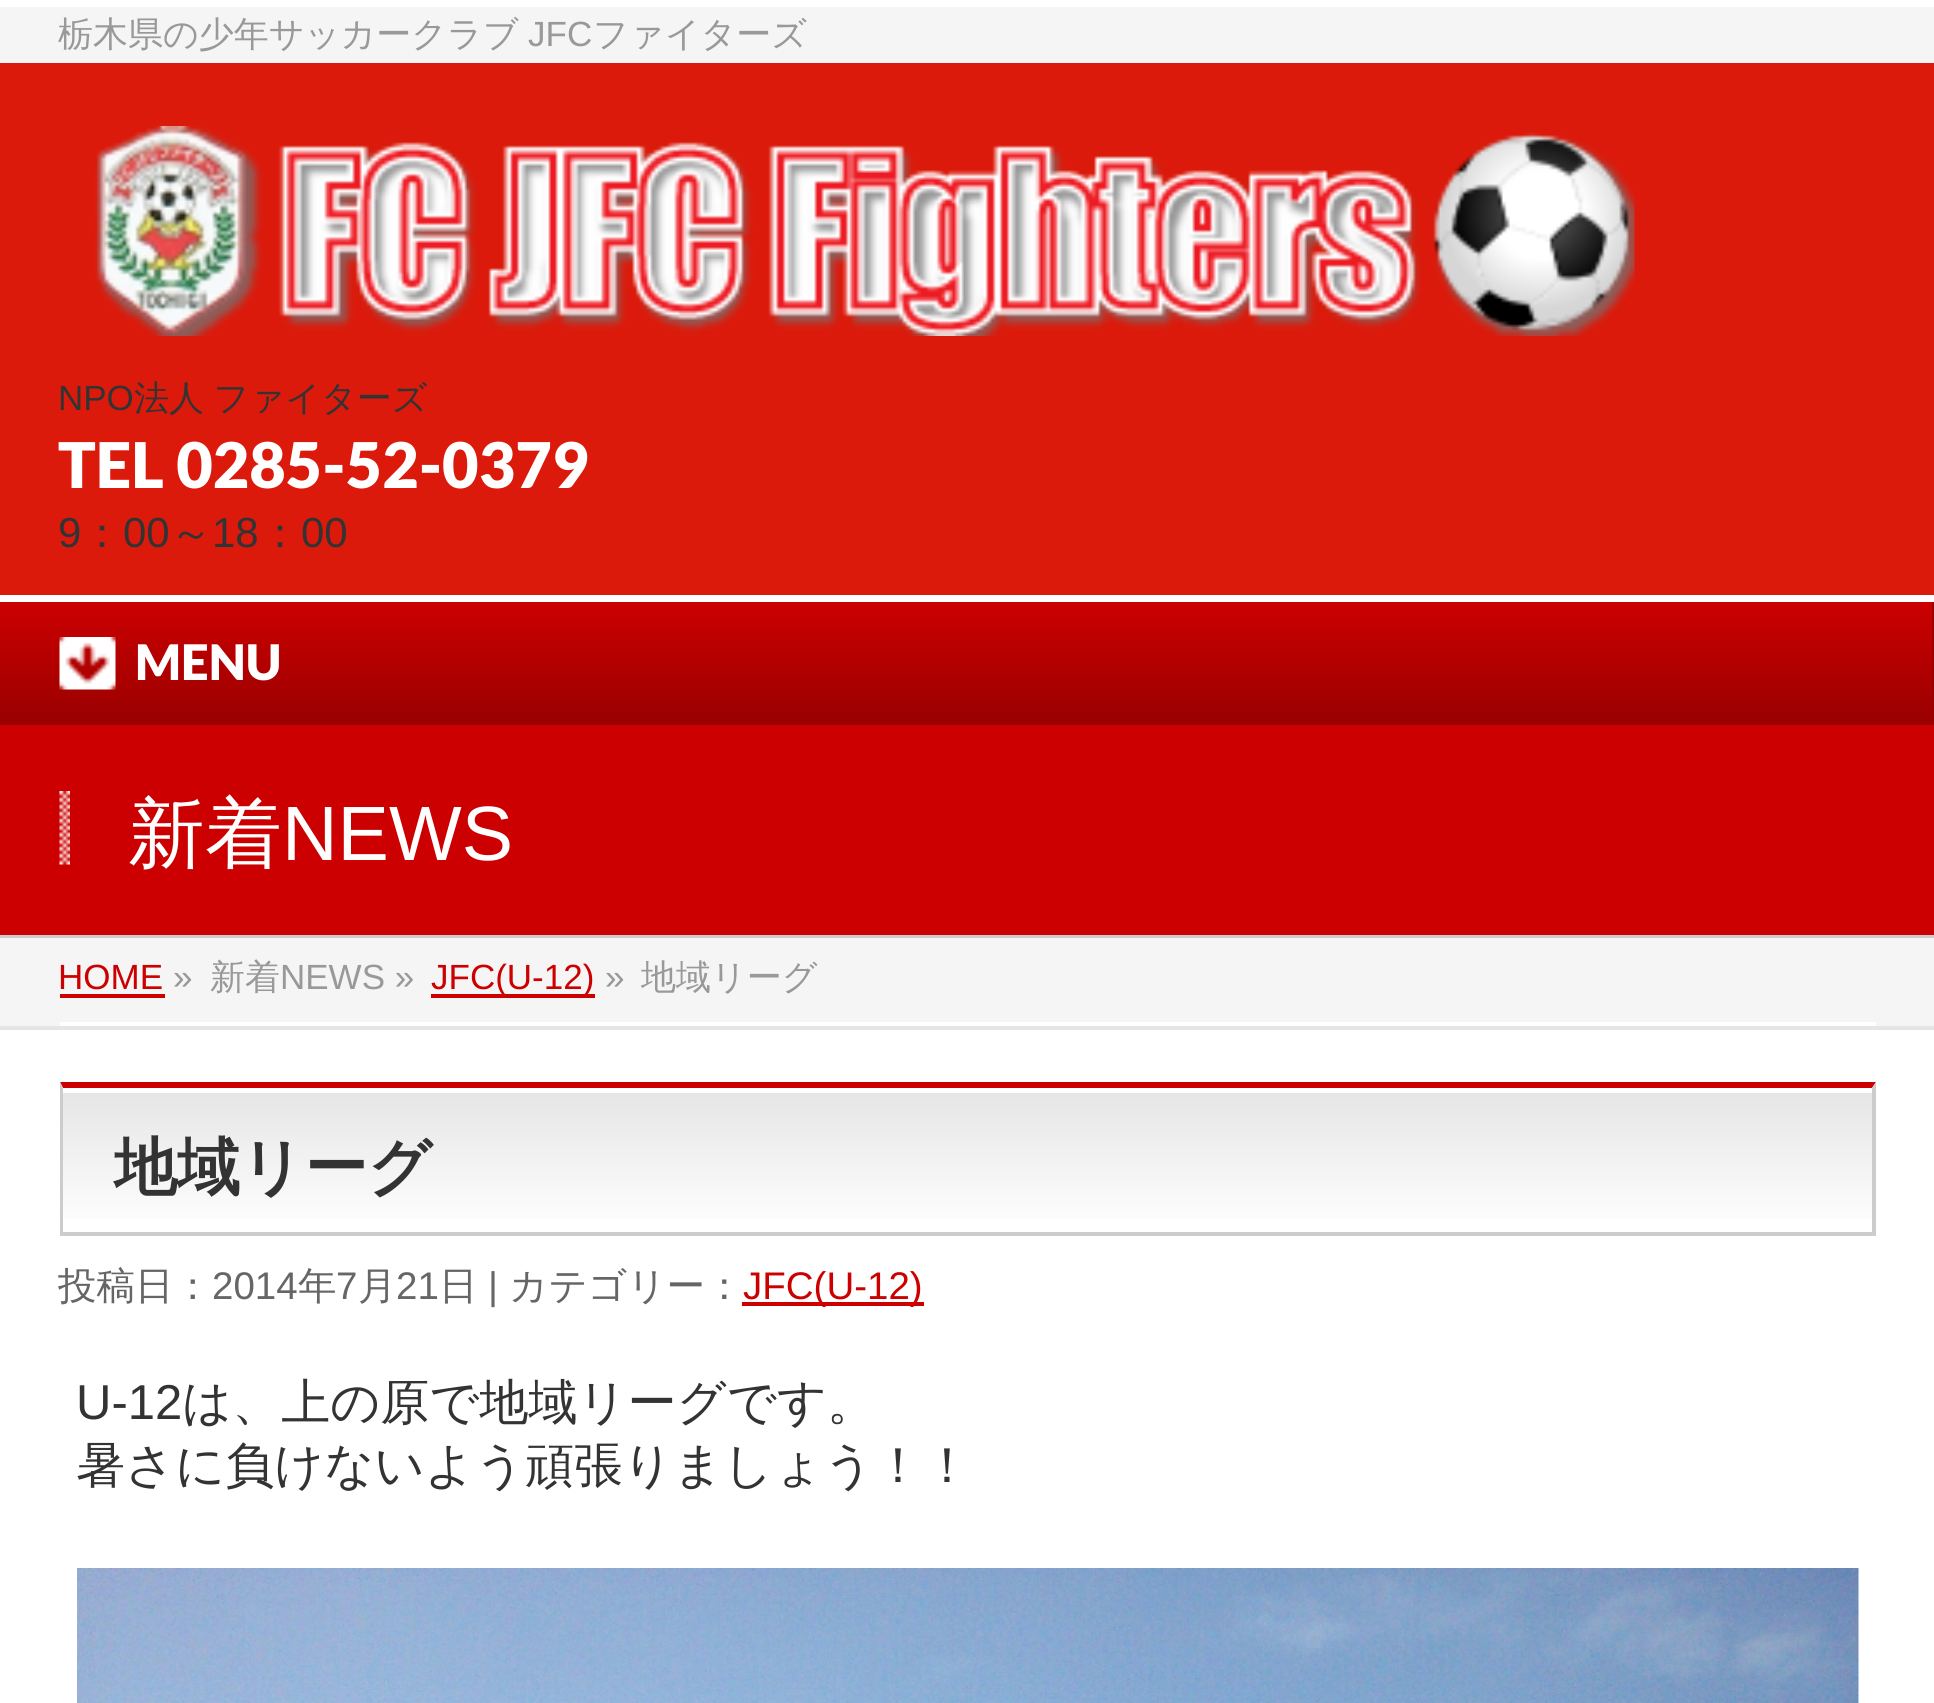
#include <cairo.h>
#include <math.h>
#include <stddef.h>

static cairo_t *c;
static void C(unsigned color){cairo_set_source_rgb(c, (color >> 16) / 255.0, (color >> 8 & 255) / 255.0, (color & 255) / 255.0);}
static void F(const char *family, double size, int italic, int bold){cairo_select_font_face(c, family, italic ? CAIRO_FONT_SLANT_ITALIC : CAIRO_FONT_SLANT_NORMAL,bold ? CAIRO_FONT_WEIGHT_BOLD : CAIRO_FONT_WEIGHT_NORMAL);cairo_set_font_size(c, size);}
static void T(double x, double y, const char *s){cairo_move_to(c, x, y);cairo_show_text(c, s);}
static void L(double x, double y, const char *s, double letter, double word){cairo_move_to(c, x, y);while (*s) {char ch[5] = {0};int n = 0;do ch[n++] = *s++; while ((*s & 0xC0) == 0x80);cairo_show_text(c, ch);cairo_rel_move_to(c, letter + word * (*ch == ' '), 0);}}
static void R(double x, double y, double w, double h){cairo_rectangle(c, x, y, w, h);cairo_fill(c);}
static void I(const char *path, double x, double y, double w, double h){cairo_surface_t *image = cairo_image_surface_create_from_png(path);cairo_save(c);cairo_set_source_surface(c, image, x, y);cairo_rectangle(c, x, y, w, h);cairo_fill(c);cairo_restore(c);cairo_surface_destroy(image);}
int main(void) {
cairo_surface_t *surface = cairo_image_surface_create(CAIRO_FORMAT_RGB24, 1934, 1703);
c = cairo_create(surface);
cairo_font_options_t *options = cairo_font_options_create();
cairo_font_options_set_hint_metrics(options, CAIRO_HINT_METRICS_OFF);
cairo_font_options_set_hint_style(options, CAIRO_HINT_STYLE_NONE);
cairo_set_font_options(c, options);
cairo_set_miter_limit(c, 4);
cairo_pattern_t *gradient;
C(0xffffff);
cairo_paint(c);
C(0xf5f5f5);
R(0,7,1934,56);
F("WenQuanYi Zen Hei Medium",35,0,0);
C(0x999999);
T(58,46,"栃木県の少年サッカークラブ");
F("Liberation Sans",35,0,0);
T(528,46,"JFC");
F("WenQuanYi Zen Hei Medium",35,0,0);
T(593,46,"ファイターズ");
C(0xdb1a0b);
R(0,63,1934,532);
I("1.png",95,126,1540,210);
F("Liberation Sans",35,0,0);
C(0x333333);
T(58,410,"NPO");
F("WenQuanYi Zen Hei Medium",35,0,0);
L(134,410,"法人 ファイターズ",0,-1);
F("Lato Black",63,0,0);
C(0xffffff);
T(58,488,"TEL 0285-52-0379");
F("Liberation Sans",42,0,0);
C(0x333333);
T(58,547,"9");
F("WenQuanYi Zen Hei Medium",42,0,0);
T(81,547,"：");
F("Liberation Sans",42,0,0);
T(123,547,"00");
F("WenQuanYi Zen Hei Medium",42,0,0);
T(170,547,"～");
F("Liberation Sans",42,0,0);
T(212,547,"18");
F("WenQuanYi Zen Hei Medium",42,0,0);
T(259,547,"：");
F("Liberation Sans",42,0,0);
T(301,547,"00");
gradient = cairo_pattern_create_linear(966,602,966,725);
cairo_pattern_add_color_stop_rgba(gradient,0,0.8,0,0,1);
cairo_pattern_add_color_stop_rgba(gradient,1,0.6,0,0,1);
cairo_set_source(c,gradient);
cairo_pattern_destroy(gradient);
R(0,602,1932,123);
C(0x990000);
R(1932,602,2,123);
I("2.png",59,637,57,53);
F("Lato Black",49,0,0);
C(0xffffff);
T(135,680,"MENU");
C(0xcc0000);
R(0,725,1934,210);
C(0xcccccc);
R(0,935,1934,3);
I("3.png",59,791,11,74);
F("WenQuanYi Zen Hei Medium",77,0,0);
C(0xffffff);
T(128,860,"新着");
F("Liberation Sans",77,0,0);
T(282,860,"NEWS");
C(0xf5f5f5);
R(0,938,1934,88);
C(0xe5e5e5);
R(0,1026,1934,4);
C(0xffffff);
R(60,1022,1816,4);
F("Liberation Sans",35,0,0);
C(0xcc0000);
T(58,989,"HOME");
R(60,994,105,4);
C(0x999999);
T(173,989,"»");
F("WenQuanYi Zen Hei Medium",35,0,0);
T(210,989,"新着");
F("Liberation Sans",35,0,0);
T(280,989,"NEWS »");
C(0xcc0000);
R(431,994,164,4);
T(431,989,"JFC(U-12)");
C(0x999999);
T(605,989,"»");
F("WenQuanYi Zen Hei Medium",35,0,0);
T(641,989,"地域リーグ");
gradient = cairo_pattern_create_linear(63,1089,63,1232);
cairo_pattern_add_color_stop_rgba(gradient,0,0.898,0.898,0.898,1);
cairo_pattern_add_color_stop_rgba(gradient,1,1,1,1,1);
cairo_set_source(c,gradient);
cairo_pattern_destroy(gradient);
R(63,1093,1809,125);
C(0xcc0000);
cairo_new_path(c);
cairo_move_to(c,60,1082);
cairo_line_to(c,1876,1082);
cairo_line_to(c,1872,1088);
cairo_line_to(c,63,1088);
cairo_close_path(c);
cairo_fill(c);
C(0xcccccc);
cairo_new_path(c);
cairo_move_to(c,1876,1082);
cairo_line_to(c,1876,1236);
cairo_line_to(c,1872,1232);
cairo_line_to(c,1872,1088);
cairo_close_path(c);
cairo_fill(c);
R(60,1232,1816,4);
cairo_new_path(c);
cairo_move_to(c,60,1236);
cairo_line_to(c,60,1082);
cairo_line_to(c,63,1088);
cairo_line_to(c,63,1232);
cairo_close_path(c);
cairo_fill(c);
F("WenQuanYi Zen Hei",63,0,1);
C(0x333333);
T(114,1189,"地域リーグ");
F("WenQuanYi Zen Hei Medium",38.5,0,0);
C(0x666666);
T(58,1299,"投稿日：");
F("Liberation Sans",38.5,0,0);
T(212,1299,"2014");
F("WenQuanYi Zen Hei Medium",38.5,0,0);
T(298,1299,"年");
F("Liberation Sans",38.5,0,0);
T(336,1299,"7");
F("WenQuanYi Zen Hei Medium",38.5,0,0);
T(358,1299,"月");
F("Liberation Sans",38.5,0,0);
T(396,1299,"21");
F("WenQuanYi Zen Hei Medium",38.5,0,0);
T(439,1299,"日");
F("Liberation Sans",38.5,0,0);
T(488,1299,"|");
F("WenQuanYi Zen Hei Medium",38.5,0,0);
T(509,1299,"カテゴリー：");
C(0xcc0000);
R(742,1302,182,4);
F("Liberation Sans",38.5,0,0);
T(743,1299,"JFC(U-12)");
F("Liberation Sans",49,0,0);
C(0x333333);
T(76,1419,"U-12");
F("WenQuanYi Zen Hei Medium",49,0,0);
T(182,1419,"は、上の原で地域リーグです。");
T(76,1482,"暑さに負けないよう頑張りましょう！！");
I("4.png",77,1568,1782,135);
cairo_surface_write_to_png(surface, "o.png");
cairo_font_options_destroy(options);
cairo_destroy(c);
cairo_surface_destroy(surface);
return 0;
}
